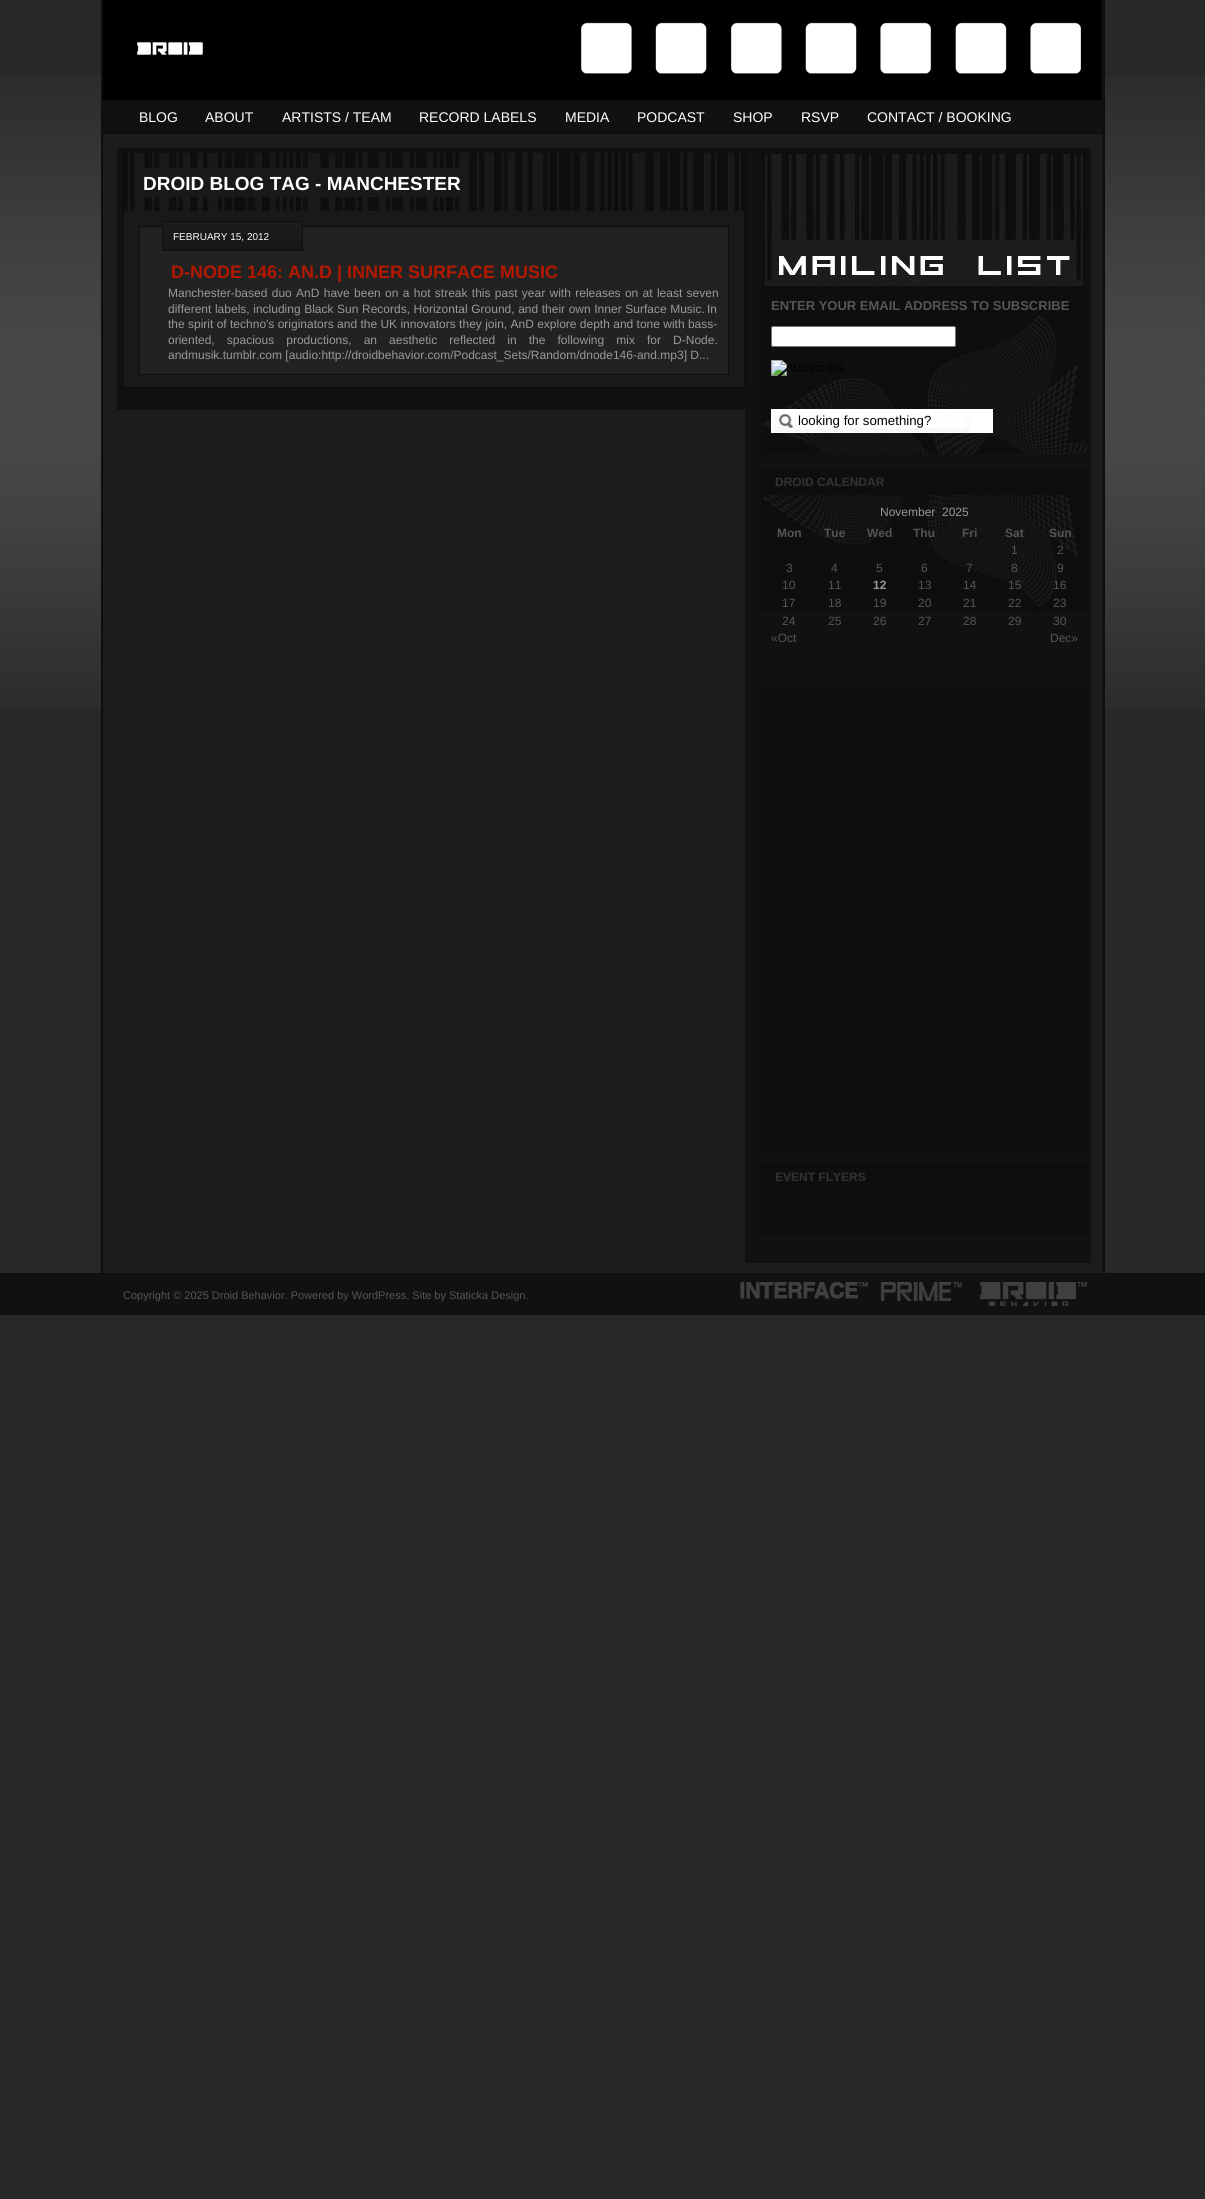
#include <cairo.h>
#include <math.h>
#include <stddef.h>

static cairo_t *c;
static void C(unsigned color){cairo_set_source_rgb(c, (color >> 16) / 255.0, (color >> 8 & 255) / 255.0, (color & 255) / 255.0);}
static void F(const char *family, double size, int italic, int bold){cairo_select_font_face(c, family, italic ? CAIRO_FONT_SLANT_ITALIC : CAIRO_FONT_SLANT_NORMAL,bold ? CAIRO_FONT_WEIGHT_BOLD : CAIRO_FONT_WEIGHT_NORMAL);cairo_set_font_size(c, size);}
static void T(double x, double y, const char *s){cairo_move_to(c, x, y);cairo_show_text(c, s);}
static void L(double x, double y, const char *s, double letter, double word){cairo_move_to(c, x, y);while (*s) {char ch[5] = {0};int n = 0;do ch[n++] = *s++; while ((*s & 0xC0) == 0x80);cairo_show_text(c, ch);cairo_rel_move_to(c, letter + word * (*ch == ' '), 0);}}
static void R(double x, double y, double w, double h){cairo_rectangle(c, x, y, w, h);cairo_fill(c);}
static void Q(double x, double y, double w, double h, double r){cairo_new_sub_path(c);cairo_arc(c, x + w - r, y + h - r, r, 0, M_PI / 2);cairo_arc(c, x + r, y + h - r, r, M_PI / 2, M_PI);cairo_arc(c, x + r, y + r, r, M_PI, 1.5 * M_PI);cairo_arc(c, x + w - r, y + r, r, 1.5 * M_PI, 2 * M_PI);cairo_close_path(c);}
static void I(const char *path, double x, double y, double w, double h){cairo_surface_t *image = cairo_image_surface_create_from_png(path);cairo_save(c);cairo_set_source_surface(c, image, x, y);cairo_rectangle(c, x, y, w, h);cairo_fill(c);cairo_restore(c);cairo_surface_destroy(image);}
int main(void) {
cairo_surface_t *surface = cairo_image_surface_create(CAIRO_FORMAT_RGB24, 1205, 2199);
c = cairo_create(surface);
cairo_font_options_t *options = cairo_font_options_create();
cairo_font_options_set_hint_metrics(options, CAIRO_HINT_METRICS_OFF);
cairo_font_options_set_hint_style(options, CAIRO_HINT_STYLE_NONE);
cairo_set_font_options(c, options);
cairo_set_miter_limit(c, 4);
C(0x282828);
cairo_paint(c);
I("1.png",0,76,1205,634);
C(0x0e0e0e);
R(1103,0,2,1273);
R(101,0,2,1273);
I("2.png",103,0,1000,100);
C(0x111111);
R(103,102,1000,30);
C(0x0e0e0e);
R(103,100,1000,2);
R(103,132,1000,2);
F("Liberation Sans",14,0,0);
C(0xffffff);
T(139,122,"BLOG");
T(205,122,"ABOUT");
T(282,122,"ARTISTS / TEAM");
T(419,122,"RECORD LABELS");
T(565,122,"MEDIA");
T(637,122,"PODCAST");
T(733,122,"SHOP");
T(801,122,"RSVP");
T(867,122,"CONTACT / BOOKING");
C(0x1c1c1c);
R(103,134,1000,1139);
C(0x111111);
R(117,148,628,262);
C(0x191919);
R(124,222,620,165);
C(0x111111);
R(745,148,346,1115);
cairo_rectangle(c,123,154,622,234);
C(0x0e0e0e);
cairo_stroke(c);
C(0x191919);
R(124,211,620,11);
I("3.png",124,153,620,58);
R(144,168,316,29);
F("Liberation Sans",19,0,1);
C(0xffffff);
T(143,190,"DROID BLOG TAG - MANCHESTER");
C(0x222222);
cairo_rectangle(c,139.5,226.5,589,148);
cairo_fill_preserve(c);
C(0x0e0e0e);
cairo_set_line_width(c,1);
cairo_stroke(c);
I("4.png",163,222,139,28);
cairo_rectangle(c,162.5,221.5,140,29);
cairo_stroke(c);
F("Liberation Sans",10,0,0);
C(0xffffff);
T(173,240,"FEBRUARY 15, 2012");
F("Liberation Sans",18,0,1);
C(0xb41800);
T(171,278,"D-NODE 146: AN.D | INNER SURFACE MUSIC");
F("Liberation Sans",12,0,0);
C(0x999999);
L(168,297,"Manchester-based duo AnD have been on a hot streak this past year with releases on at least seven",0,1);
L(168,313,"different labels, including Black Sun Records, Horizontal Ground, and their own Inner Surface Music.",0,.25);
T(707,313,"In");
T(168,328,"the spirit of techno's originators and the UK innovators they join, AnD explore depth and tone with bass-");
L(168,344,"oriented, spacious productions, an aesthetic reflected in the following mix for D-Node.",0,8.75);
T(168,359,"andmusik.tumblr.com [audio:http://droidbehavior.com/Podcast_Sets/Random/dnode146-and.mp3] D...");
C(0x0e0e0e);
R(761,152,326,302);
I("5.png",763,154,324,300);
F("Liberation Sans",13,0,1);
C(0x555555);
T(771,310,"ENTER YOUR EMAIL ADDRESS TO SUBSCRIBE");
C(0xffffff);
Q(771.5,326.5,184,20,1.5);
cairo_fill_preserve(c);
C(0x767676);
cairo_stroke(c);
I("6.png",771,360,72,16);
C(0xffffff);
R(771,409,222,24);
I("7.png",772,414,199,18);
R(796,418,170,10);
F("Liberation Sans",13.25,0,0);
C(0x000000);
T(798,425,"looking for something?");
I("8.png",761,495,326,117);
C(0x0e0e0e);
R(761,468,326,27);
F("Liberation Sans",12,0,1);
C(0x333333);
T(775,486,"DROID CALENDAR");
F("Liberation Sans",12,0,0);
C(0x999999);
T(880,516,"November  2025");
F("Liberation Sans",12,0,1);
C(0x555555);
T(777,537,"Mon");
T(824,537,"Tue");
T(867,537,"Wed");
T(913,537,"Thu");
T(962,537,"Fri");
T(1005,537,"Sat");
T(1049,537,"Sun");
F("Liberation Sans",12,0,0);
T(1011,554,"1");
T(1057,554,"2");
T(786,572,"3");
T(831,572,"4");
T(876,572,"5");
T(921,572,"6");
T(966,572,"7");
T(1011,572,"8");
T(1057,572,"9");
T(782,589,"10");
T(828,589,"11");
F("Liberation Sans",12,0,1);
C(0x999999);
T(873,589,"12");
F("Liberation Sans",12,0,0);
C(0x555555);
T(918,589,"13");
T(963,589,"14");
T(1008,589,"15");
T(1053,589,"16");
T(782,607,"17");
T(828,607,"18");
T(873,607,"19");
T(918,607,"20");
T(963,607,"21");
T(1008,607,"22");
T(1053,607,"23");
T(782,625,"24");
T(828,625,"25");
T(873,625,"26");
T(918,625,"27");
T(963,625,"28");
T(1008,625,"29");
T(1053,625,"30");
T(771,642,"«Oct");
T(1050,642,"Dec»");
C(0x0e0e0e);
R(761,688,326,465);
R(761,1163,326,72);
F("Liberation Sans",12,0,1);
C(0x333333);
T(775,1181,"EVENT FLYERS");
C(0x111111);
R(0,1274,1205,40);
C(0x0e0e0e);
R(0,1273,1205,1);
R(0,1314,1205,1);
F("Liberation Sans",11,0,0);
C(0x555555);
T(123,1299,"Copyright © 2025 Droid Behavior. Powered by WordPress. Site by Staticka Design.");
I("9.png",740,1282,128,17);
I("10.png",881,1282,81,19);
I("11.png",980,1282,107,24);
cairo_surface_write_to_png(surface, "o.png");
cairo_font_options_destroy(options);
cairo_destroy(c);
cairo_surface_destroy(surface);
return 0;
}
